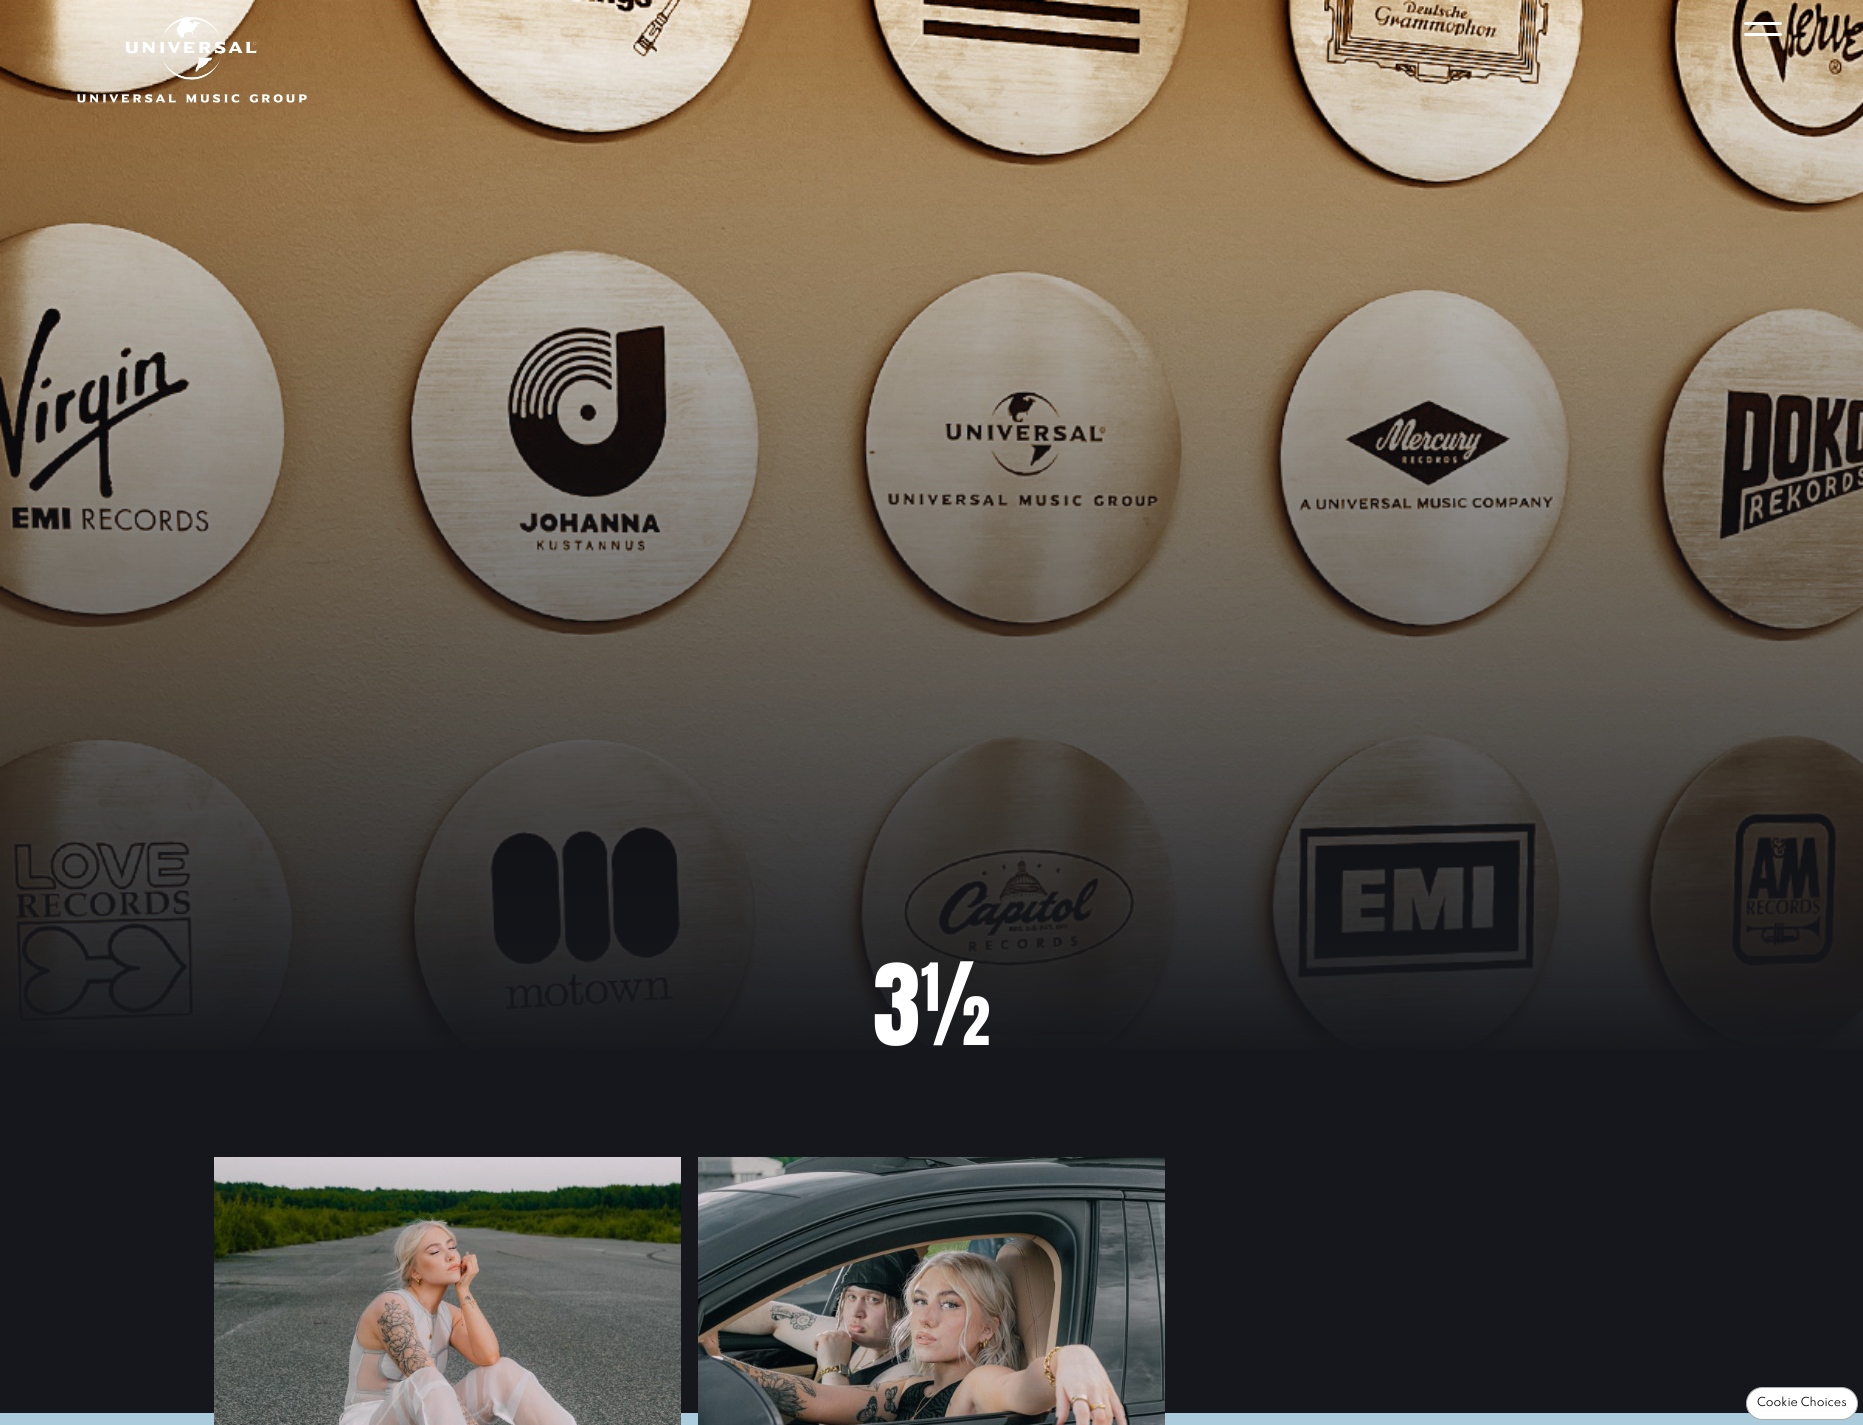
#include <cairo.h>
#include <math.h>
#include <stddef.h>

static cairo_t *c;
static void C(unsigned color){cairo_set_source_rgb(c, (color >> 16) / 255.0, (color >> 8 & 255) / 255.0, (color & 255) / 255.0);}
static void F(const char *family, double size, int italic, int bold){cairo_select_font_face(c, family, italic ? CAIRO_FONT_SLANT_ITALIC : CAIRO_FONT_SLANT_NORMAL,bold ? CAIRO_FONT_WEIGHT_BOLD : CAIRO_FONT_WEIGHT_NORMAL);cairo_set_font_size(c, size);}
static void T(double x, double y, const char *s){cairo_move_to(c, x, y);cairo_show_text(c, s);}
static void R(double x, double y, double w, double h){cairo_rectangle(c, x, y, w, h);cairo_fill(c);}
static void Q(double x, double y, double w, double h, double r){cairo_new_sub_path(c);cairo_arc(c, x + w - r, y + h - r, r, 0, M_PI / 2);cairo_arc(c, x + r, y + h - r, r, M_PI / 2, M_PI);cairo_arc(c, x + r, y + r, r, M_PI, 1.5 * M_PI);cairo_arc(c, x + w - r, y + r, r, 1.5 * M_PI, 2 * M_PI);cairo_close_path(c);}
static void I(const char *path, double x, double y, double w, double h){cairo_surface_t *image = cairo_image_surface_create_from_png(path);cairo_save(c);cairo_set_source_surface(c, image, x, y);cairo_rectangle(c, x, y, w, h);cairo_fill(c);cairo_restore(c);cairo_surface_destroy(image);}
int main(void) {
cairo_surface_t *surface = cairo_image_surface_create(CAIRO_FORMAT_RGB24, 1863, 1425);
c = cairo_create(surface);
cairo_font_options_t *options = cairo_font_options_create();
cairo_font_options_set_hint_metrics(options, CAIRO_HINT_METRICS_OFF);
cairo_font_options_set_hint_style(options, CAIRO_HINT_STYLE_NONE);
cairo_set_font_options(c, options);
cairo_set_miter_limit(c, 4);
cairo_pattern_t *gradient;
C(0x15171c);
cairo_paint(c);
I("2.png",0,0,1863,1049);
I("1.png",77,17,230,86);
C(0xffffff);
Q(1744,22,38,3,1.5);
cairo_fill(c);
Q(1744,33,38,3,1.5);
cairo_fill(c);
F("Anton",96,0,0);
T(873,1045,"3½");
gradient = cairo_pattern_create_linear(932,1157,932,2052);
cairo_pattern_add_color_stop_rgba(gradient,0,0.533,0.714,0.8,1);
cairo_pattern_add_color_stop_rgba(gradient,1,1,1,1,1);
cairo_set_source(c,gradient);
cairo_pattern_destroy(gradient);
R(0,1413,1863,12);
I("3.png",214,1157,467,268);
I("4.png",698,1157,467,268);
C(0xffffff);
Q(1746.5,1387.5,111,32,16);
cairo_fill_preserve(c);
C(0xaaaaaa);
cairo_set_line_width(c,1);
cairo_stroke(c);
F("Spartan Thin",11,0,0);
C(0x000000);
T(1757,1406,"Cookie Choices");
cairo_surface_write_to_png(surface, "o.png");
cairo_font_options_destroy(options);
cairo_destroy(c);
cairo_surface_destroy(surface);
return 0;
}
